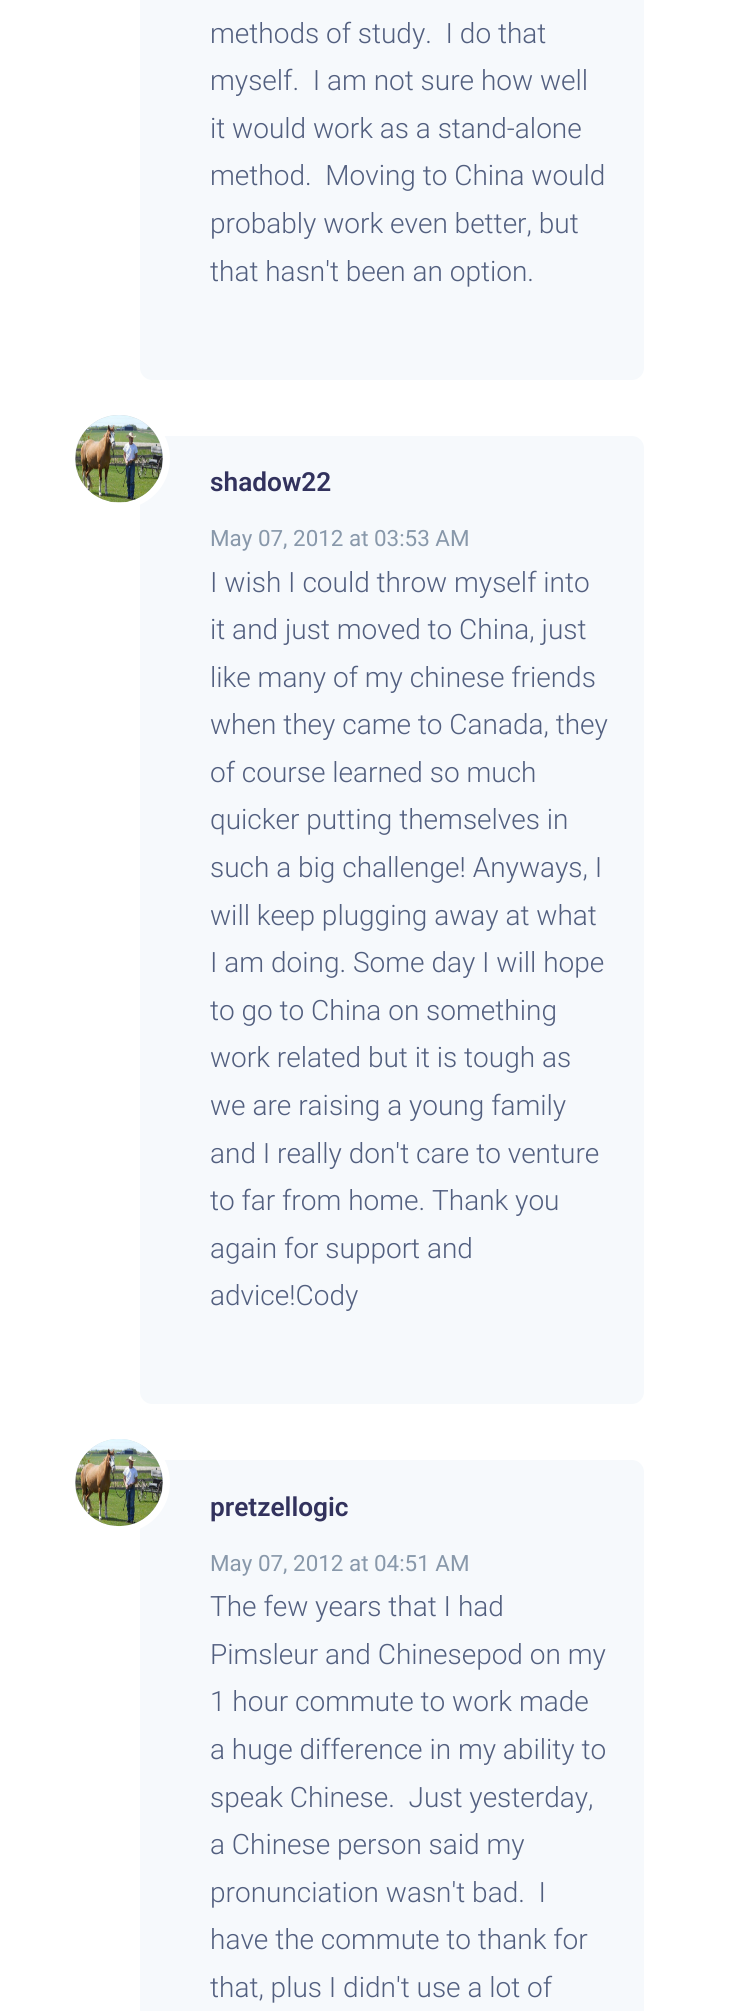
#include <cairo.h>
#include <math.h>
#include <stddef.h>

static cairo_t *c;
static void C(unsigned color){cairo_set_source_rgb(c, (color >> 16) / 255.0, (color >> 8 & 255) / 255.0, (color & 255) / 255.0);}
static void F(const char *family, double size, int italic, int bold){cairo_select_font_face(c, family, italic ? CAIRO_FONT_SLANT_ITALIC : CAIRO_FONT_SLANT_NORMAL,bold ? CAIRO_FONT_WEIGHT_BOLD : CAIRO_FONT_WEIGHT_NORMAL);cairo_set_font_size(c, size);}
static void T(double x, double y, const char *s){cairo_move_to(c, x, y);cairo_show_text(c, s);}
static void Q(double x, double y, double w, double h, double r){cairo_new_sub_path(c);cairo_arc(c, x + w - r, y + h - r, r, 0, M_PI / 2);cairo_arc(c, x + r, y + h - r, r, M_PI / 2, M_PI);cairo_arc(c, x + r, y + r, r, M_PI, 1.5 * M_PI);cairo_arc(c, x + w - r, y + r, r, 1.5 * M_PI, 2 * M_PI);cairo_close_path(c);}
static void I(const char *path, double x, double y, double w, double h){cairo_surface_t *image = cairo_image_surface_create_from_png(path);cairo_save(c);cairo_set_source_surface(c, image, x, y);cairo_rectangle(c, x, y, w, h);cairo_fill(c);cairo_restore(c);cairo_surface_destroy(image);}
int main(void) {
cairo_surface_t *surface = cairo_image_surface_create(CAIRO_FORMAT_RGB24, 738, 2011);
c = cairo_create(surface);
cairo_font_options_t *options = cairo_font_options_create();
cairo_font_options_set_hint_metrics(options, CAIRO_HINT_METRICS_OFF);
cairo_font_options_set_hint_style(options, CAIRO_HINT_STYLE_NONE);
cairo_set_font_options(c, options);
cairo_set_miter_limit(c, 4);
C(0xffffff);
cairo_paint(c);
C(0xf6f9fc);
cairo_new_path(c);
cairo_move_to(c,140,-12);
cairo_line_to(c,632,-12);
cairo_curve_to(c,638.5,-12,644,-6.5,644,0);
cairo_line_to(c,644,368);
cairo_curve_to(c,644,374.5,638.5,380,632,380);
cairo_line_to(c,152,380);
cairo_curve_to(c,145.5,380,140,374.5,140,368);
cairo_close_path(c);
cairo_fill(c);
F("Roboto Light",28,0,0);
C(0x525f7f);
T(210,43,"methods of study.  I do that");
T(210,90,"myself.  I am not sure how well");
T(210,138,"it would work as a stand-alone");
T(210,185,"method.  Moving to China would");
T(210,233,"probably work even better, but");
T(210,281,"that hasn't been an option.");
C(0xf6f9fc);
cairo_new_path(c);
cairo_move_to(c,140,436);
cairo_line_to(c,632,436);
cairo_curve_to(c,638.5,436,644,441.5,644,448);
cairo_line_to(c,644,1392);
cairo_curve_to(c,644,1398.5,638.5,1404,632,1404);
cairo_line_to(c,152,1404);
cairo_curve_to(c,145.5,1404,140,1398.5,140,1392);
cairo_close_path(c);
cairo_fill(c);
C(0xced4da);
Q(71.5,411.5,95,94,47);
cairo_fill_preserve(c);
C(0xffffff);
cairo_set_line_width(c,7);
cairo_stroke(c);
I("1.png",75,415,88,88);
F("Roboto SemiBold",26.25,0,0);
C(0x32325d);
T(210,491,"shadow22");
F("Roboto",22.4,0,0);
C(0x8898aa);
T(210,546,"May 07, 2012 at 03:53 AM");
F("Roboto Light",28,0,0);
C(0x525f7f);
T(210,592,"I wish I could throw myself into");
T(210,639,"it and just moved to China, just");
T(210,687,"like many of my chinese friends");
T(210,734,"when they came to Canada, they");
T(210,782,"of course learned so much");
T(210,829,"quicker putting themselves in");
T(210,877,"such a big challenge! Anyways, I");
T(210,925,"will keep plugging away at what");
T(210,972,"I am doing. Some day I will hope");
T(210,1020,"to go to China on something");
T(210,1067,"work related but it is tough as");
T(210,1115,"we are raising a young family");
T(210,1163,"and I really don't care to venture");
T(210,1210,"to far from home. Thank you");
T(210,1258,"again for support and");
T(210,1305,"advice!Cody");
C(0xf6f9fc);
cairo_new_path(c);
cairo_move_to(c,140,1460);
cairo_line_to(c,632,1460);
cairo_curve_to(c,638.5,1460,644,1465.5,644,1472);
cairo_line_to(c,644,2011);
cairo_curve_to(c,644,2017.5,638.5,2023,632,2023);
cairo_line_to(c,152,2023);
cairo_curve_to(c,145.5,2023,140,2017.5,140,2011);
cairo_close_path(c);
cairo_fill(c);
C(0xced4da);
Q(71.5,1435.5,95,94,47);
cairo_fill_preserve(c);
C(0xffffff);
cairo_stroke(c);
I("2.png",75,1439,88,88);
F("Roboto SemiBold",26.25,0,0);
C(0x32325d);
T(210,1516,"pretzellogic");
F("Roboto",22.4,0,0);
C(0x8898aa);
T(210,1571,"May 07, 2012 at 04:51 AM");
F("Roboto Light",28,0,0);
C(0x525f7f);
T(210,1616,"The few years that I had");
T(210,1664,"Pimsleur and Chinesepod on my");
T(210,1711,"1 hour commute to work made");
T(210,1759,"a huge difference in my ability to");
T(210,1807,"speak Chinese.  Just yesterday,");
T(210,1854,"a Chinese person said my");
T(210,1902,"pronunciation wasn't bad.  I");
T(210,1949,"have the commute to thank for");
T(210,1997,"that, plus I didn't use a lot of");
cairo_surface_write_to_png(surface, "o.png");
cairo_font_options_destroy(options);
cairo_destroy(c);
cairo_surface_destroy(surface);
return 0;
}
